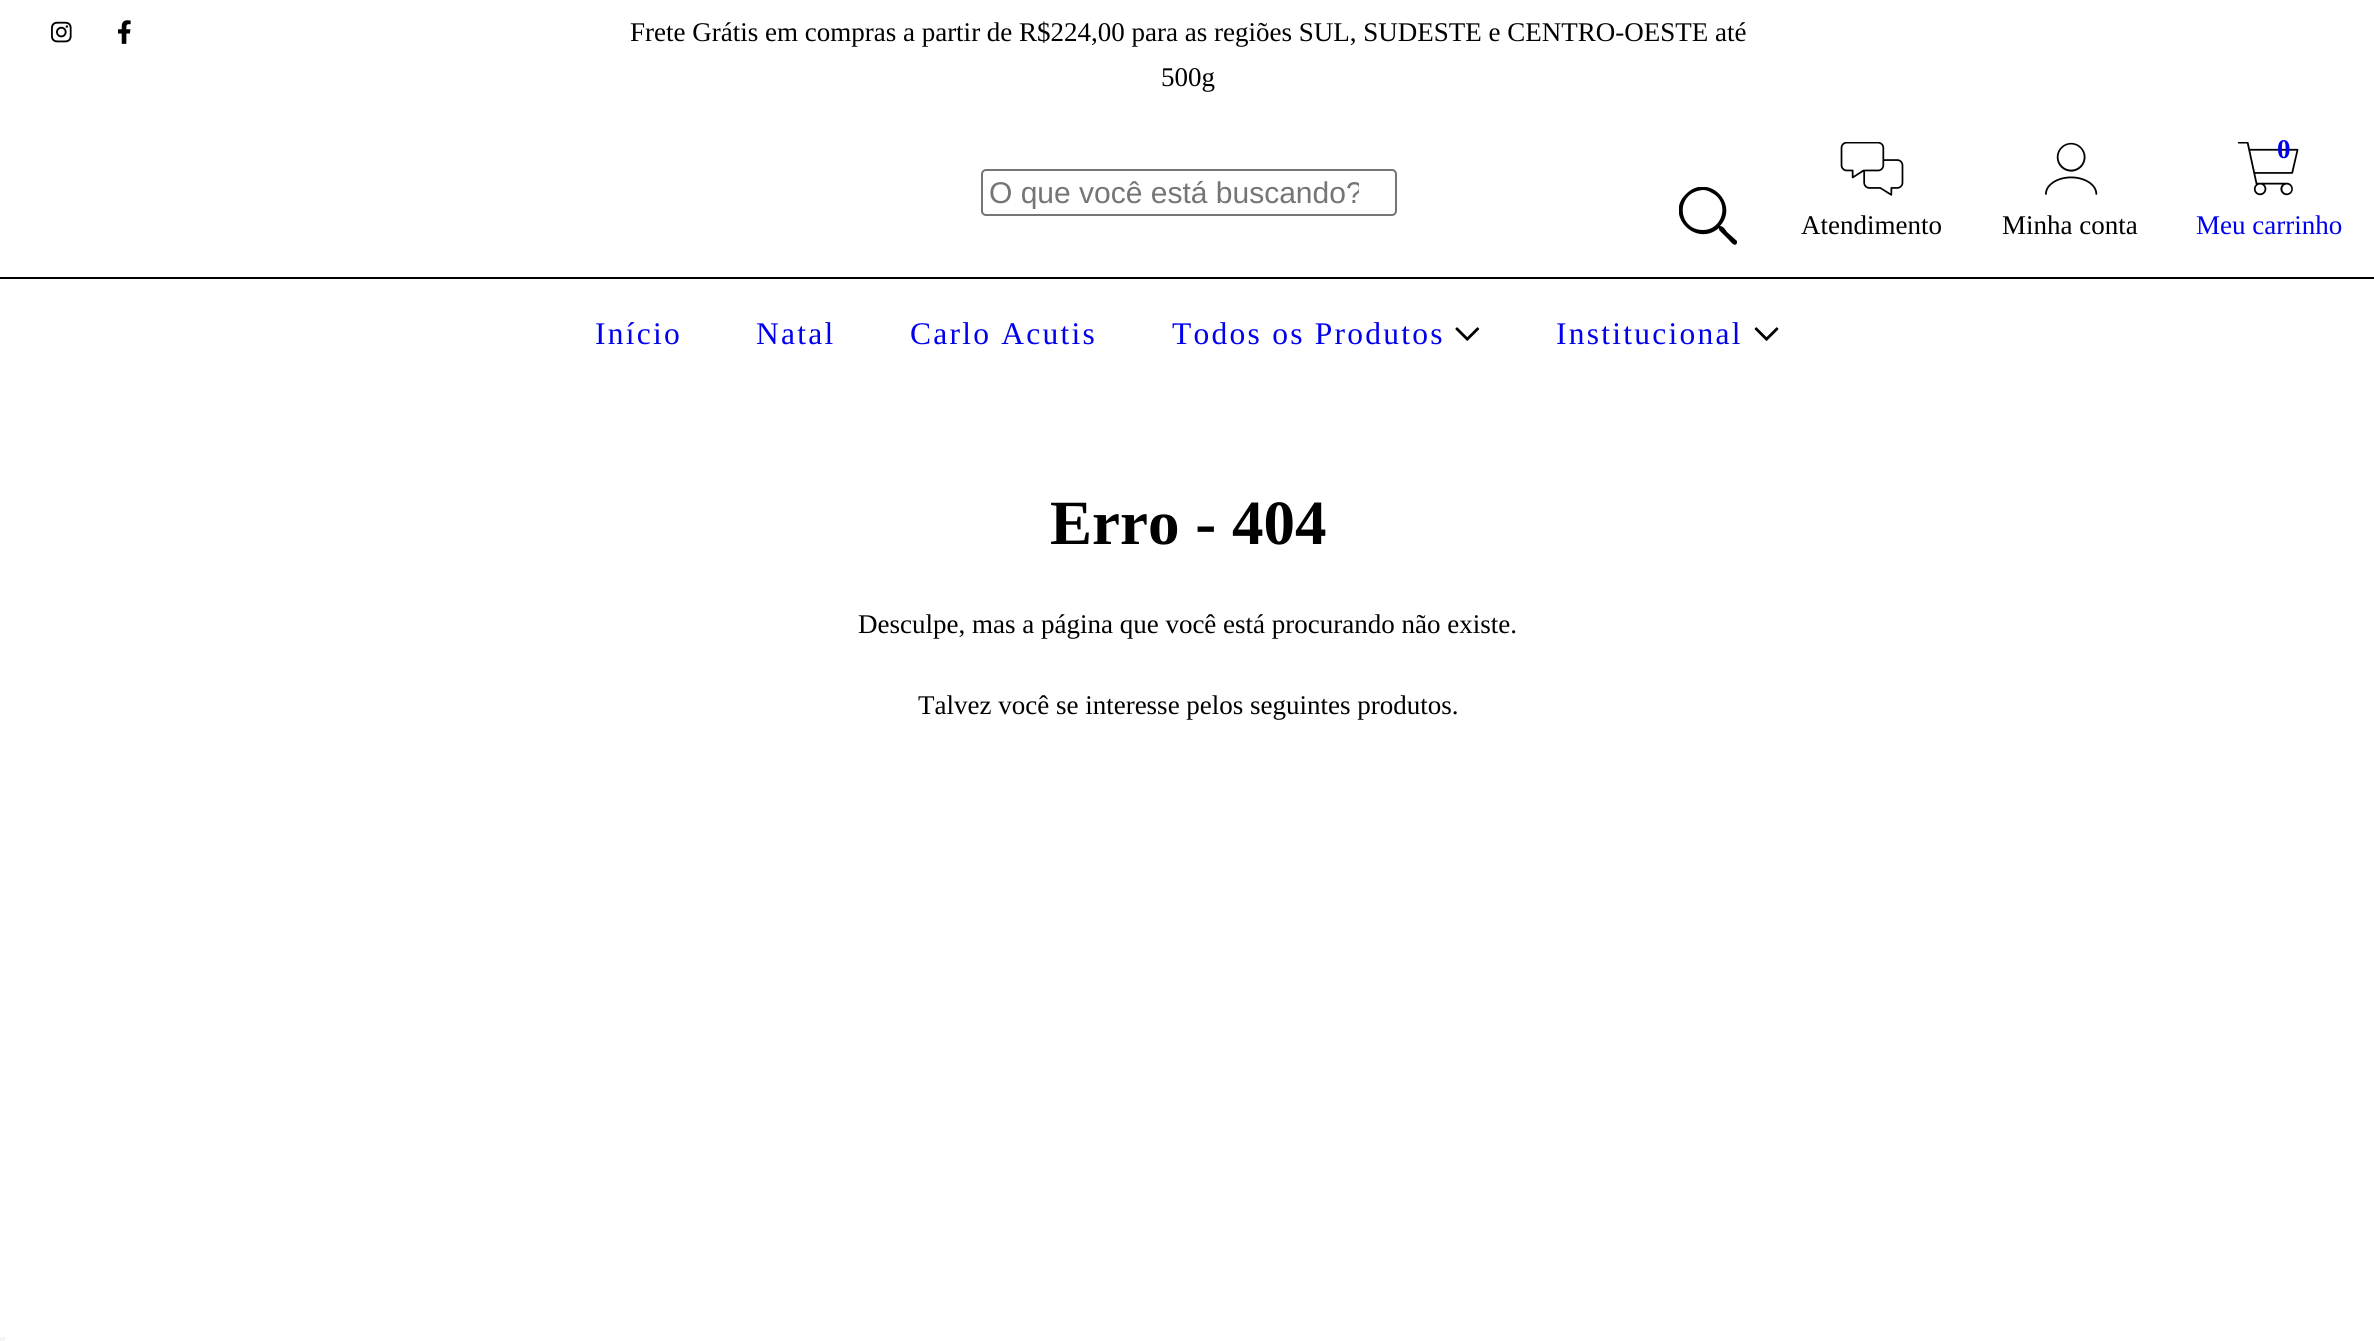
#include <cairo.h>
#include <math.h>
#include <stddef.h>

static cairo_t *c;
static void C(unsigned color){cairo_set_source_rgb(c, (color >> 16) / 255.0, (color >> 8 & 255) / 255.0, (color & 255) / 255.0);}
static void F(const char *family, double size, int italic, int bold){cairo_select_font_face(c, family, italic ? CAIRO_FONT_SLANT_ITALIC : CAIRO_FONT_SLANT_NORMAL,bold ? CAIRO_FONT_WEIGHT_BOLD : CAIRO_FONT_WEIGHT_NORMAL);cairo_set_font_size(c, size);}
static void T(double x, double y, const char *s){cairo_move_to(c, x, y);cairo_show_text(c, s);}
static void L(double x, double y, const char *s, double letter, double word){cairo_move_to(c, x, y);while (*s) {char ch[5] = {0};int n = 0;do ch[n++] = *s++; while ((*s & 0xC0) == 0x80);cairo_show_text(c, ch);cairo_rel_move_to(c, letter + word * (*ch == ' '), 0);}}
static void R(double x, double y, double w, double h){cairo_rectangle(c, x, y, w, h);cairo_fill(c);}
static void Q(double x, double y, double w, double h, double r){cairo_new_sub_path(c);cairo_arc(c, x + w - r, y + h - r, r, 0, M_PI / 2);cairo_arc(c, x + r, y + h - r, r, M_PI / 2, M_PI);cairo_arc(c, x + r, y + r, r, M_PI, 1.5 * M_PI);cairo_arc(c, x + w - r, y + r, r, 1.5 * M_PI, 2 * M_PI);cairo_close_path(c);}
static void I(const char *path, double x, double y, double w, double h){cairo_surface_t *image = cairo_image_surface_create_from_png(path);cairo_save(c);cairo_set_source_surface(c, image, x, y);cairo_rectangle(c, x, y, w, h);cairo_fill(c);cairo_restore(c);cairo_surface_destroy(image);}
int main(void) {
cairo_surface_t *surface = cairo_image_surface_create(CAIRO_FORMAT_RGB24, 2374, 1341);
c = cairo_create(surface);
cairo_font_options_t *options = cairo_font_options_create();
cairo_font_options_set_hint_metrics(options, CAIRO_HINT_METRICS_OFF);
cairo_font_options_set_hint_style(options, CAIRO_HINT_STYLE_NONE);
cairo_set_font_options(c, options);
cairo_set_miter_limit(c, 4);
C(0xffffff);
cairo_paint(c);
I("1.png",51,21,21,22);
I("2.png",118,20,13,24);
F("Liberation Serif",27,0,0);
C(0x000000);
T(630,41,"Frete Grátis em compras a partir de R$224,00 para as regiões SUL, SUDESTE e CENTRO-OESTE até");
T(1161,86,"500g");
Q(982,170,414,45,4);
C(0x767676);
cairo_stroke(c);
cairo_save(c);
cairo_rectangle(c,990,176,369,33);
cairo_clip(c);
F("Liberation Sans",30,0,0);
C(0x757575);
T(989,203,"O que você está buscando?");
cairo_restore(c);
cairo_save(c);
cairo_rectangle(c,1679,187,59,60);
cairo_clip(c);
C(0x000000);
cairo_new_path(c);
cairo_move_to(c,1737,241);
cairo_line_to(c,1727,232);
cairo_curve_to(c,1725,229,1723,226,1720,226);
cairo_curve_to(c,1740,204,1708,172,1686,194);
cairo_curve_to(c,1664,215,1696,248,1719,228);
cairo_curve_to(c,1719,230,1719,230,1721,232);
cairo_line_to(c,1729,240);
cairo_curve_to(c,1730,241,1735,248,1737,243);
cairo_close_path(c);
cairo_move_to(c,1703,230);
cairo_curve_to(c,1677,230,1675,192,1703,190);
cairo_curve_to(c,1706,190,1709,191,1712,193);
cairo_curve_to(c,1730,202,1723,230,1703,230);
cairo_close_path(c);
cairo_fill(c);
cairo_restore(c);
I("3.png",1840,142,64,54);
C(0x000000);
T(1801,234,"Atendimento");
I("4.png",2045,142,53,53);
T(2002,234,"Minha conta");
I("5.png",2237,142,62,54);
F("Liberation Serif",27,0,1);
C(0x0000ee);
T(2277,158,"0");
F("Liberation Serif",27,0,0);
T(2196,234,"Meu carrinho");
C(0x000000);
R(0,277,2374,2);
F("Liberation Serif",31.5,0,0);
C(0x0000ee);
L(595,344,"Início",2.25,0);
L(756,344,"Natal",2.25,0);
L(910,344,"Carlo Acutis",2.25,0);
L(1172,344,"Todos os Produtos",2.25,0);
I("6.png",1455,327,25,14);
L(1556,344,"Institucional",2.25,0);
I("7.png",1754,327,25,14);
F("Liberation Serif",63,0,1);
C(0x000000);
T(1050,544,"Erro - 404");
F("Liberation Serif",27,0,0);
T(858,633,"Desculpe, mas a página que você está procurando não existe.");
T(918,714,"Talvez você se interesse pelos seguintes produtos.");
C(0xf5f5f5);
R(0,1337,5,4);
cairo_surface_write_to_png(surface, "o.png");
cairo_font_options_destroy(options);
cairo_destroy(c);
cairo_surface_destroy(surface);
return 0;
}
